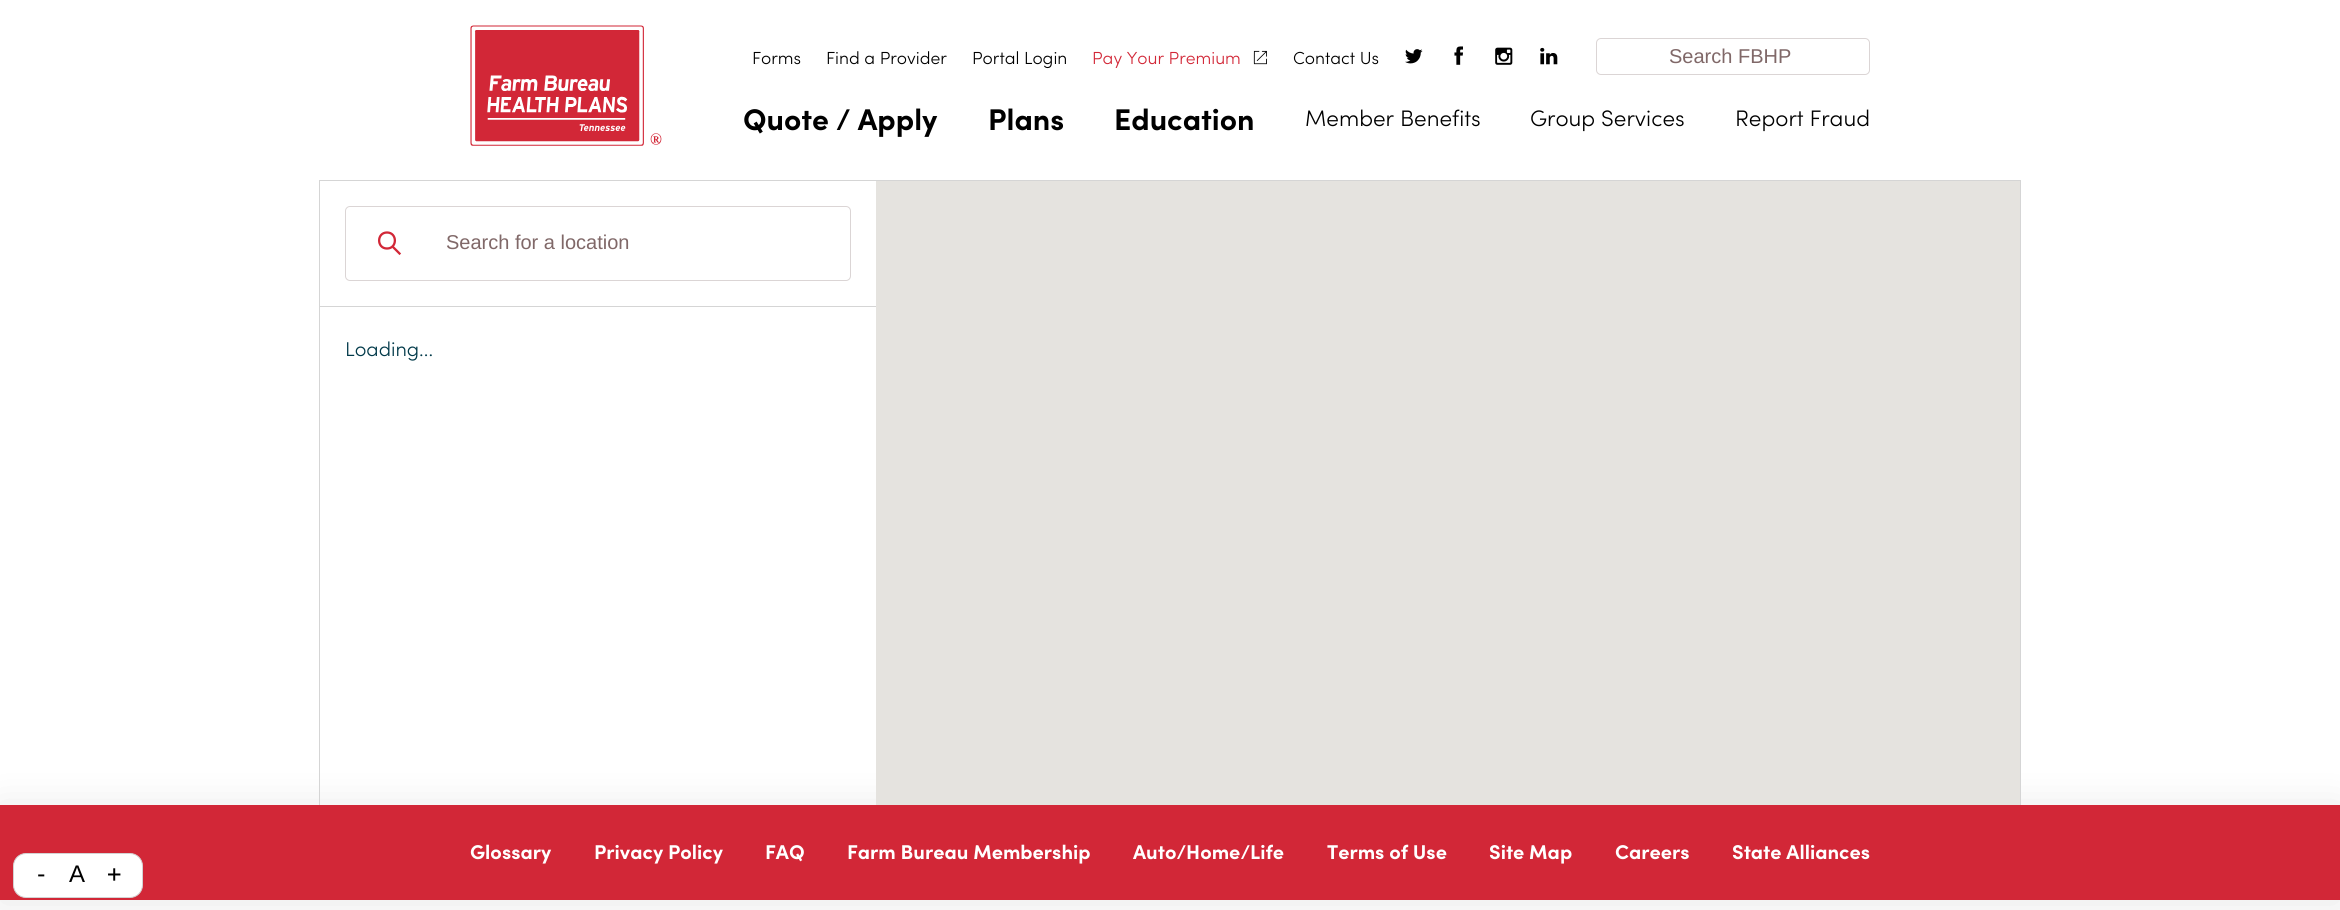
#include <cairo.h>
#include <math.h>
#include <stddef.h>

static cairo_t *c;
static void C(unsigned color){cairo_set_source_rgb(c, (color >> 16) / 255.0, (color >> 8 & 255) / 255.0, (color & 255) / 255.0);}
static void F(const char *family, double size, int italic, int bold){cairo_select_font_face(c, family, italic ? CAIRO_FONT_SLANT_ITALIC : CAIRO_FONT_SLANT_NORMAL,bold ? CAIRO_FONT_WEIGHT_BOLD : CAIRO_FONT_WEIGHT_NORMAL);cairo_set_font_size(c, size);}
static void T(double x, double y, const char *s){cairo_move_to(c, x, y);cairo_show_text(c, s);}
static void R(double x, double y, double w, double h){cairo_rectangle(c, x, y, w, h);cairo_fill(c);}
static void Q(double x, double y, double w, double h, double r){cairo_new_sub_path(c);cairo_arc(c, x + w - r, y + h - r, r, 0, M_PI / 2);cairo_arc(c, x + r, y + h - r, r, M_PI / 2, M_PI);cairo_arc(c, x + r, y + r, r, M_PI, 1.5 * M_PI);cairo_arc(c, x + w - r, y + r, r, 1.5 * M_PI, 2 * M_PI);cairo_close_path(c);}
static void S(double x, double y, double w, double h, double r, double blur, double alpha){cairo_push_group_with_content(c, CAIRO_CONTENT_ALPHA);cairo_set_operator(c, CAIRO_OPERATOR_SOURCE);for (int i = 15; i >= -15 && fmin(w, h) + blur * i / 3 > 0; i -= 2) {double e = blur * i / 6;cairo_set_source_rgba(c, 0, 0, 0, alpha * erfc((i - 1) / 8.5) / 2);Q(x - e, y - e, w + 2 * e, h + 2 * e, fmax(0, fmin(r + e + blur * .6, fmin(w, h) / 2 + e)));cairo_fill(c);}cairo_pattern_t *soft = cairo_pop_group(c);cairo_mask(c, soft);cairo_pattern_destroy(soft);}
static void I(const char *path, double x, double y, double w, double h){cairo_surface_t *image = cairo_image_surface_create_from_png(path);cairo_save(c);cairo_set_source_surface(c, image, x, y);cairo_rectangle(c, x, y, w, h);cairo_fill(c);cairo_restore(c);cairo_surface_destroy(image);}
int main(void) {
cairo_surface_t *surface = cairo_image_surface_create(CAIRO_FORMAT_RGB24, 2340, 910);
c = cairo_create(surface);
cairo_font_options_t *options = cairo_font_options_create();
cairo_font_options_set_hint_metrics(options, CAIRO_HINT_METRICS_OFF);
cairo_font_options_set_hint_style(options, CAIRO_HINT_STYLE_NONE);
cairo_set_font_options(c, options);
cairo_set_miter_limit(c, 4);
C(0xffffff);
cairo_paint(c);
I("1.png",470,25,192,121);
F("Sofia Light",17.5,0,0);
C(0x000000);
T(752,64,"Forms");
T(826,64,"Find a Provider");
T(972,64,"Portal Login");
C(0xd22737);
T(1092,64,"Pay Your Premium");
I("2.png",1253,50,14,15);
C(0x000000);
T(1293,64,"Contact Us");
I("3.png",1405,49,18,15);
I("4.png",1454,46,9,19);
I("5.png",1495,47,18,18);
I("6.png",1540,47,18,18);
Q(1596.5,38.5,273,36,4.5);
C(0xdbd5d5);
cairo_set_line_width(c,1);
cairo_stroke(c);
F("Liberation Sans",20,0,0);
C(0x806868);
T(1669,63,"Search FBHP");
F("Sofia",30,0,1);
C(0x000000);
T(743,130,"Quote / Apply");
T(988,130,"Plans");
T(1114,130,"Education");
F("Sofia Light",22.5,0,0);
T(1305,126,"Member Benefits");
T(1530,126,"Group Services");
T(1735,126,"Report Fraud");
C(0x000000);
S(0,808,2340,95,0,19,.1);
C(0xd5d5d5);
R(2020,180,1,625);
R(319,180,1,625);
R(320,180,1700,1);
cairo_new_path(c);
cairo_move_to(c,387,232.5);
cairo_curve_to(c,376.5,232.5,376.5,248.5,387,248.5);
cairo_curve_to(c,397.5,248.5,397.5,232.5,387,232.5);
cairo_close_path(c);
C(0xd22737);
cairo_set_line_width(c,2.3);
cairo_stroke(c);
cairo_new_path(c);
cairo_move_to(c,393.5,247.5);
cairo_line_to(c,399.5,253.5);
cairo_set_line_cap(c,CAIRO_LINE_CAP_SQUARE);
cairo_stroke(c);
Q(345.5,206.5,505,74,4.5);
C(0xdbd5d5);
cairo_set_line_width(c,1);
cairo_set_line_cap(c,CAIRO_LINE_CAP_BUTT);
cairo_stroke(c);
F("Liberation Sans",20,0,0);
C(0x806868);
T(446,249,"Search for a location");
C(0xe5e3df);
R(876,181,1144,624);
C(0xd5d5d5);
R(320,306,556,1);
F("Sofia Light",20,0,0);
C(0x023a4a);
T(345,356,"Loading...");
C(0xd22737);
R(0,805,2340,95);
F("Sofia",20,0,1);
C(0xffffff);
T(470,859,"Glossary");
T(594,859,"Privacy Policy");
T(765,859,"FAQ");
T(847,859,"Farm Bureau Membership");
T(1133,859,"Auto/Home/Life");
T(1327,859,"Terms of Use");
T(1489,859,"Site Map");
T(1615,859,"Careers");
T(1732,859,"State Alliances");
Q(13.5,853.5,129,44,12.5);
cairo_fill_preserve(c);
C(0xd3d3d3);
cairo_stroke(c);
F("DejaVu Sans Mono",24,0,0);
C(0x000000);
T(34,882,"-");
F("Liberation Sans",24,0,0);
T(69,882,"A");
F("DejaVu Sans Mono",24,0,0);
T(107,882,"+");
cairo_surface_write_to_png(surface, "o.png");
cairo_font_options_destroy(options);
cairo_destroy(c);
cairo_surface_destroy(surface);
return 0;
}
